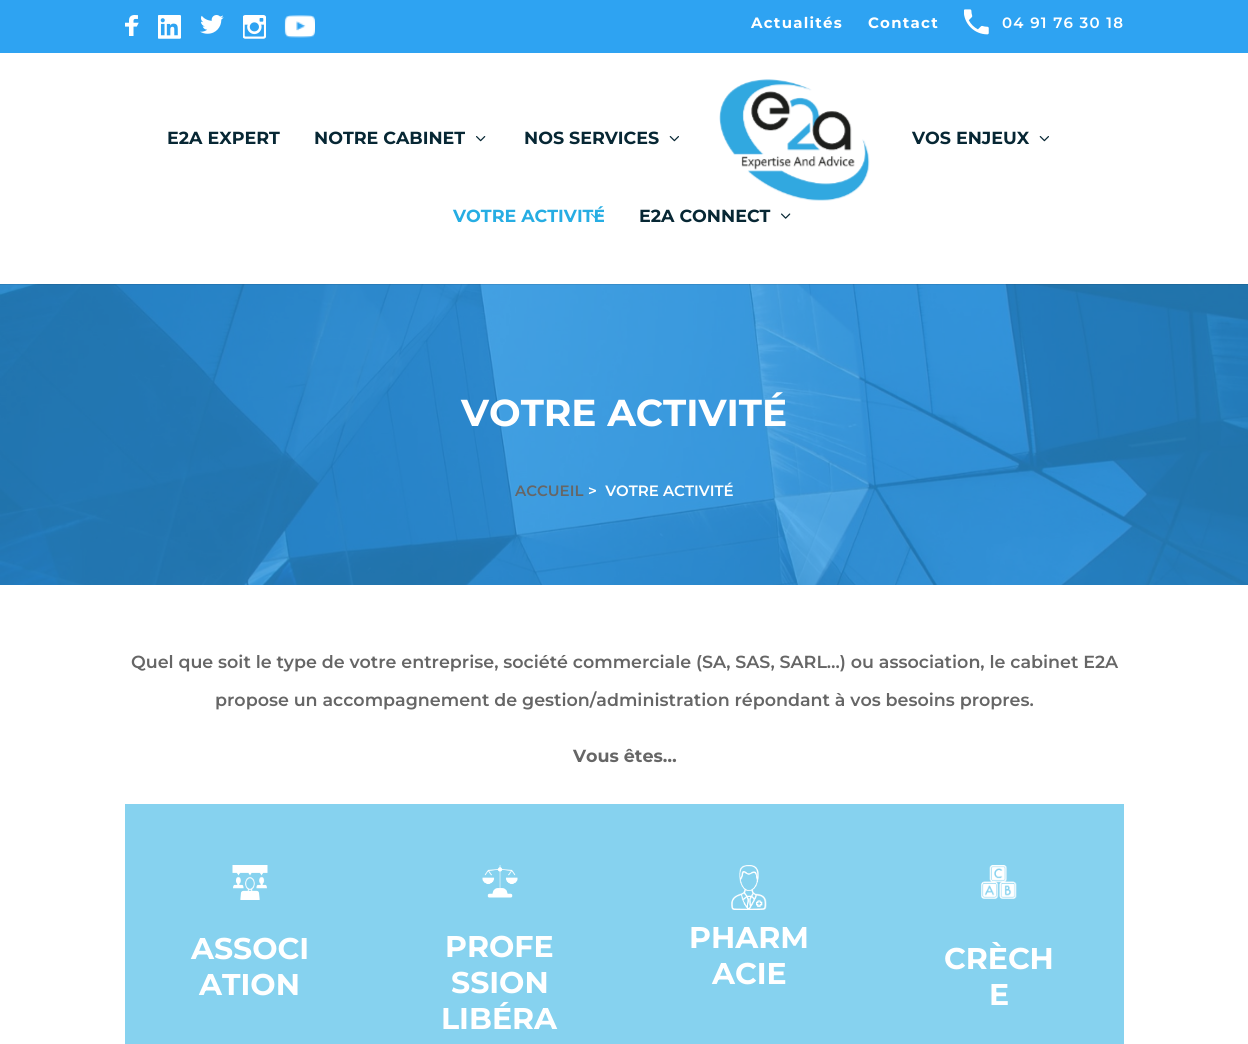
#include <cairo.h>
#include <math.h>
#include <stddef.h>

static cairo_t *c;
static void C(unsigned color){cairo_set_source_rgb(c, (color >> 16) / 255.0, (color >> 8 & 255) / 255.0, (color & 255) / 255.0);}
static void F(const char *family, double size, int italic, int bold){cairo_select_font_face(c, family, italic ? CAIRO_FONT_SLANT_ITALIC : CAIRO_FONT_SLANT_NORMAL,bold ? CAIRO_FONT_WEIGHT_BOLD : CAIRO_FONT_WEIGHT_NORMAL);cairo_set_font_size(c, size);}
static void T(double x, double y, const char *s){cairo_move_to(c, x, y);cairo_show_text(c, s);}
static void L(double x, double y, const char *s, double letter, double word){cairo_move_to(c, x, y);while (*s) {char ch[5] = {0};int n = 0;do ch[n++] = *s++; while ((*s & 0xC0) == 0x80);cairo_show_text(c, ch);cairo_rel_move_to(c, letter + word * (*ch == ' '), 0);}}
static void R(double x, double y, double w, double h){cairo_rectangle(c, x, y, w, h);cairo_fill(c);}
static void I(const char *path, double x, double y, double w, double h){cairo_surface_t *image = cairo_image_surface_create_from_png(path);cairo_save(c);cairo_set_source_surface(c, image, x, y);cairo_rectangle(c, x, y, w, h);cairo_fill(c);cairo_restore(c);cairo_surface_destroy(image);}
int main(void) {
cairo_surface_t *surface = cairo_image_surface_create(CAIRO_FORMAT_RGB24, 1248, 1044);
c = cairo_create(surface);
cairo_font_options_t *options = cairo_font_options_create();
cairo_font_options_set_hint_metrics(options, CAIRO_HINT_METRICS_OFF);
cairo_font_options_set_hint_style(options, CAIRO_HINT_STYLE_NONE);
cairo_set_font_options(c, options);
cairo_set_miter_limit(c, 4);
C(0xffffff);
cairo_paint(c);
C(0x2ea3f2);
R(0,0,1248,53);
I("1.png",125,15,14,21);
I("2.png",158,15,23,24);
I("3.png",200,15,24,19);
I("4.png",243,15,23,24);
I("5.png",284,15,31,23);
F("Montserrat Thin",15,0,0);
C(0xffffff);
L(751,28,"Actualités",1.25,0);
L(868,28,"Contact",1.25,0);
I("6.png",964,9,25,26);
F("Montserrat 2 Thin",15,0,0);
L(1002,28,"04 91 76 30 18",1.25,0);
I("12.png",0,284,1248,301);
cairo_set_source_rgba(c,0,0,0,0.1);
cairo_new_path(c);
cairo_move_to(c,0,284);
cairo_line_to(c,0,285);
cairo_line_to(c,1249,285);
cairo_line_to(c,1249,54);
cairo_line_to(c,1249,284);
cairo_close_path(c);
cairo_fill(c);
F("Montserrat Thin",17.5,0,0);
C(0x072734);
T(167,144,"E2A EXPERT");
T(314,144,"NOTRE CABINET");
I("7.png",476,136,10,6);
T(524,144,"NOS SERVICES");
I("8.png",669,136,10,6);
I("9.png",719,79,151,122);
T(912,144,"VOS ENJEUX");
I("8.png",1039,136,10,6);
C(0x26ade3);
T(453,222,"VOTRE ACTIVITÉ");
I("10.png",591,213,10,6);
C(0x072734);
T(639,222,"E2A CONNECT");
I("11.png",781,213,10,6);
F("Montserrat Thin",37.5,0,0);
C(0xffffff);
T(461,426,"VOTRE ACTIVITÉ");
F("Montserrat 2 Thin",15,0,0);
C(0x666666);
T(515,496,"ACCUEIL");
C(0xffffff);
T(588,496,">  VOTRE ACTIVITÉ");
F("Montserrat 2 Thin",17.5,0,0);
C(0x666666);
T(131,668,"Quel que soit le type de votre entreprise, société commerciale (SA, SAS, SARL…) ou association, le cabinet E2A");
T(215,706,"propose un accompagnement de gestion/administration répondant à vos besoins propres.");
F("Montserrat Thin",17.5,0,0);
T(573,762,"Vous êtes…");
C(0x86d2ef);
R(125,804,999,240);
I("13.png",232,865,36,35);
F("Montserrat Thin",30,0,0);
C(0xffffff);
T(191,959,"ASSOCI");
T(199,995,"ATION");
I("14.png",482,865,36,33);
T(445,957,"PROFE");
T(451,993,"SSION");
T(441,1029,"LIBÉRA");
I("15.png",731,865,36,45);
T(689,948,"PHARM");
T(712,984,"ACIE");
I("16.png",981,865,36,34);
T(944,969,"CRÈCH");
T(989,1005,"E");
cairo_surface_write_to_png(surface, "o.png");
cairo_font_options_destroy(options);
cairo_destroy(c);
cairo_surface_destroy(surface);
return 0;
}
